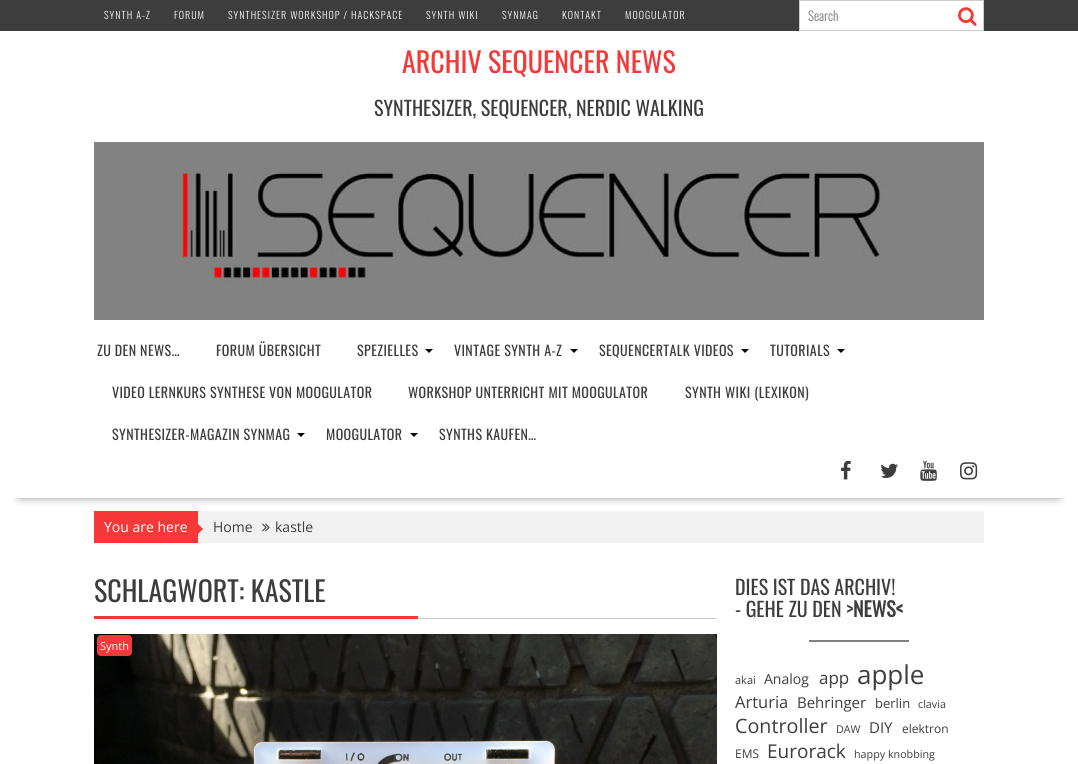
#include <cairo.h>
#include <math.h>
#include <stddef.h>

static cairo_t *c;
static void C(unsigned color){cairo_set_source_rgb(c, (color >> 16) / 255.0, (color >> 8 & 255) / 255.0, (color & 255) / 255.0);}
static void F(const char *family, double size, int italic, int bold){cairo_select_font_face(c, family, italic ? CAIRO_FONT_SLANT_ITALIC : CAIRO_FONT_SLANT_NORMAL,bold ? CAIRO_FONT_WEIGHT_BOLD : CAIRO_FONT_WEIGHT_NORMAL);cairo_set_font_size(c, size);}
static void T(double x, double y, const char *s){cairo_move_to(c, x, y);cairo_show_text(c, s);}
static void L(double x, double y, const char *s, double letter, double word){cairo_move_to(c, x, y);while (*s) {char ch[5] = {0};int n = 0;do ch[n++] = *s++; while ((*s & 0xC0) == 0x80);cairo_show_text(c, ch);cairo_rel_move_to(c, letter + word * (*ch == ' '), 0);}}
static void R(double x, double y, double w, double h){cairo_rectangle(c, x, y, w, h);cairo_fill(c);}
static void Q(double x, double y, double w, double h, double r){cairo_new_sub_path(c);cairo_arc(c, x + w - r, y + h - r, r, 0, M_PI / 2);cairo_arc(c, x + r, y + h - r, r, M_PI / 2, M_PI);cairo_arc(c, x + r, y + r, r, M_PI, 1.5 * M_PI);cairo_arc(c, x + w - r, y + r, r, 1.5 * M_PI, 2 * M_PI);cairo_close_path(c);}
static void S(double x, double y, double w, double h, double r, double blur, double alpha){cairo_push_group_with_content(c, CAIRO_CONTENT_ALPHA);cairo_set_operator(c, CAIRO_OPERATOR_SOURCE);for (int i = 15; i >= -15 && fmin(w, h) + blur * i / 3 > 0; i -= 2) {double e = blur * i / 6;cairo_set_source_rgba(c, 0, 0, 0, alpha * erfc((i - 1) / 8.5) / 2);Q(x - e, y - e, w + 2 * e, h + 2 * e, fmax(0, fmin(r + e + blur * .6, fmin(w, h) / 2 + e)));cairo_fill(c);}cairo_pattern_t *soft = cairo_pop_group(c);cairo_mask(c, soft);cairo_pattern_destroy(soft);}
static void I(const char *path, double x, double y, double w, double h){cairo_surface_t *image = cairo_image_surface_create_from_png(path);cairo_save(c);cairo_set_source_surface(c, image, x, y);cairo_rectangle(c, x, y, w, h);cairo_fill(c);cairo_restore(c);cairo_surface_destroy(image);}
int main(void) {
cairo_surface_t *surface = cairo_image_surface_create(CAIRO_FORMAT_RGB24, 1078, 764);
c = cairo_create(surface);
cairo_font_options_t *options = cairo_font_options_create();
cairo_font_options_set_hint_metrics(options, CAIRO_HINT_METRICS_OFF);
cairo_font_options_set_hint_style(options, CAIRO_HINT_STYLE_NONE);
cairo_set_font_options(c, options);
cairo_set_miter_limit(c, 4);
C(0xffffff);
cairo_paint(c);
C(0x3d3d3d);
R(0,0,1078,31);
F("Oswald Light",10,0,0);
C(0xffffff);
L(104,19,"SYNTH A-Z",1,0);
L(174,19,"FORUM",1,0);
L(228,19,"SYNTHESIZER WORKSHOP / HACKSPACE",1,0);
L(426,19,"SYNTH WIKI",1,0);
L(502,19,"SYNMAG",1,0);
L(562,19,"KONTAKT",1,0);
L(625,19,"MOOGULATOR",1,0);
cairo_rectangle(c,799.5,.5,184,30);
cairo_fill_preserve(c);
C(0xcccccc);
cairo_set_line_width(c,1);
cairo_stroke(c);
F("Oswald Light",13,0,0);
C(0x757575);
T(808,21,"Search");
I("1.png",958,7,19,19);
F("Oswald",28,0,0);
C(0xf73838);
T(402,73,"ARCHIV SEQUENCER NEWS");
F("Oswald",20,0,0);
C(0x3d3d3d);
T(374,116,"SYNTHESIZER, SEQUENCER, NERDIC WALKING");
I("2.png",94,142,890,178);
C(0xf1f1f1);
R(198,511,786,32);
cairo_save(c);
cairo_rectangle(c,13,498,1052,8);
cairo_clip(c);
C(0x000000);
S(20,363,1038,132,0,5.5,.75);
cairo_restore(c);
F("Oswald",14,0,0);
C(0x3d3d3d);
L(97,356,"ZU DEN NEWS…",.4,0);
L(216,356,"FORUM ÜBERSICHT",.4,0);
L(357,356,"SPEZIELLES",.4,0);
C(0x000000);
cairo_new_path(c);
cairo_move_to(c,425,349);
cairo_line_to(c,433,349);
cairo_line_to(c,429,353);
cairo_close_path(c);
cairo_fill(c);
C(0x3d3d3d);
L(454,356,"VINTAGE SYNTH A-Z",.4,0);
C(0x000000);
cairo_new_path(c);
cairo_move_to(c,570,349);
cairo_line_to(c,578,349);
cairo_line_to(c,574,353);
cairo_close_path(c);
cairo_fill(c);
C(0x3d3d3d);
L(599,356,"SEQUENCERTALK VIDEOS",.4,0);
C(0x000000);
cairo_new_path(c);
cairo_move_to(c,741,349);
cairo_line_to(c,749,349);
cairo_line_to(c,745,353);
cairo_close_path(c);
cairo_fill(c);
C(0x3d3d3d);
L(770,356,"TUTORIALS",.4,0);
C(0x000000);
cairo_new_path(c);
cairo_move_to(c,837,349);
cairo_line_to(c,845,349);
cairo_line_to(c,841,353);
cairo_close_path(c);
cairo_fill(c);
C(0x3d3d3d);
L(112,398,"VIDEO LERNKURS SYNTHESE VON MOOGULATOR",.4,0);
L(408,398,"WORKSHOP UNTERRICHT MIT MOOGULATOR",.4,0);
L(685,398,"SYNTH WIKI (LEXIKON)",.4,0);
L(112,440,"SYNTHESIZER-MAGAZIN SYNMAG",.4,0);
C(0x000000);
cairo_new_path(c);
cairo_move_to(c,297,433);
cairo_line_to(c,305,433);
cairo_line_to(c,301,437);
cairo_close_path(c);
cairo_fill(c);
C(0x3d3d3d);
L(326,440,"MOOGULATOR",.4,0);
C(0x000000);
cairo_new_path(c);
cairo_move_to(c,410,433);
cairo_line_to(c,418,433);
cairo_line_to(c,414,437);
cairo_close_path(c);
cairo_fill(c);
C(0x3d3d3d);
L(439,440,"SYNTHS KAUFEN…",.4,0);
I("3.png",841,460,10,20);
I("4.png",880,463,18,15);
I("5.png",920,460,17,21);
I("6.png",960,462,18,18);
C(0xf73838);
R(94,511,104,32);
F("Open Sans",14,0,0);
C(0xffffff);
T(104,532,"You are here");
C(0xf73838);
cairo_new_path(c);
cairo_move_to(c,198,534);
cairo_line_to(c,198,524);
cairo_line_to(c,203,529);
cairo_close_path(c);
cairo_fill(c);
C(0x3d3d3d);
T(213,532,"Home");
I("7.png",262,523,8,9);
T(275,532,"kastle");
C(0xcccccc);
R(418,618,299,1);
F("Oswald",28,0,0);
C(0x3d3d3d);
T(94,602,"SCHLAGWORT: KASTLE");
C(0xf73838);
R(94,616,324,3);
I("8.png",94,634,623,130);
Q(97,635,35,21,4);
cairo_fill(c);
F("Open Sans",11,0,0);
C(0xffffff);
T(100,650,"Synth");
F("Oswald",20,0,0);
C(0x3d3d3d);
T(735,595,"DIES IST DAS ARCHIV!");
T(735,617,"- GEHE ZU DEN >");
F("Oswald",20,0,1);
T(853,617,"NEWS<");
C(0x808080);
R(809,640,100,2);
F("Open Sans",11,0,0);
C(0x3d3d3d);
T(735,684,"akai");
F("Open Sans",14,0,0);
T(764,684,"Analog");
F("Open Sans",17,0,0);
T(819,684,"app");
F("Open Sans",26,0,0);
T(857,684,"apple");
F("Open Sans",16.5,0,0);
T(735,708,"Arturia");
F("Open Sans",15,0,0);
T(797,708,"Behringer");
F("Open Sans",13,0,0);
T(875,708,"berlin");
F("Open Sans",10.75,0,0);
T(918,708,"clavia");
F("Open Sans",19.75,0,0);
T(735,733,"Controller");
F("Open Sans",10.75,0,0);
T(836,733,"DAW");
F("Open Sans",15,0,0);
T(869,733,"DIY");
F("Open Sans",12,0,0);
T(902,733,"elektron");
T(735,758,"EMS");
F("Open Sans",19,0,0);
T(767,758,"Eurorack");
F("Open Sans",10.75,0,0);
T(854,758,"happy knobbing");
cairo_surface_write_to_png(surface, "o.png");
cairo_font_options_destroy(options);
cairo_destroy(c);
cairo_surface_destroy(surface);
return 0;
}
